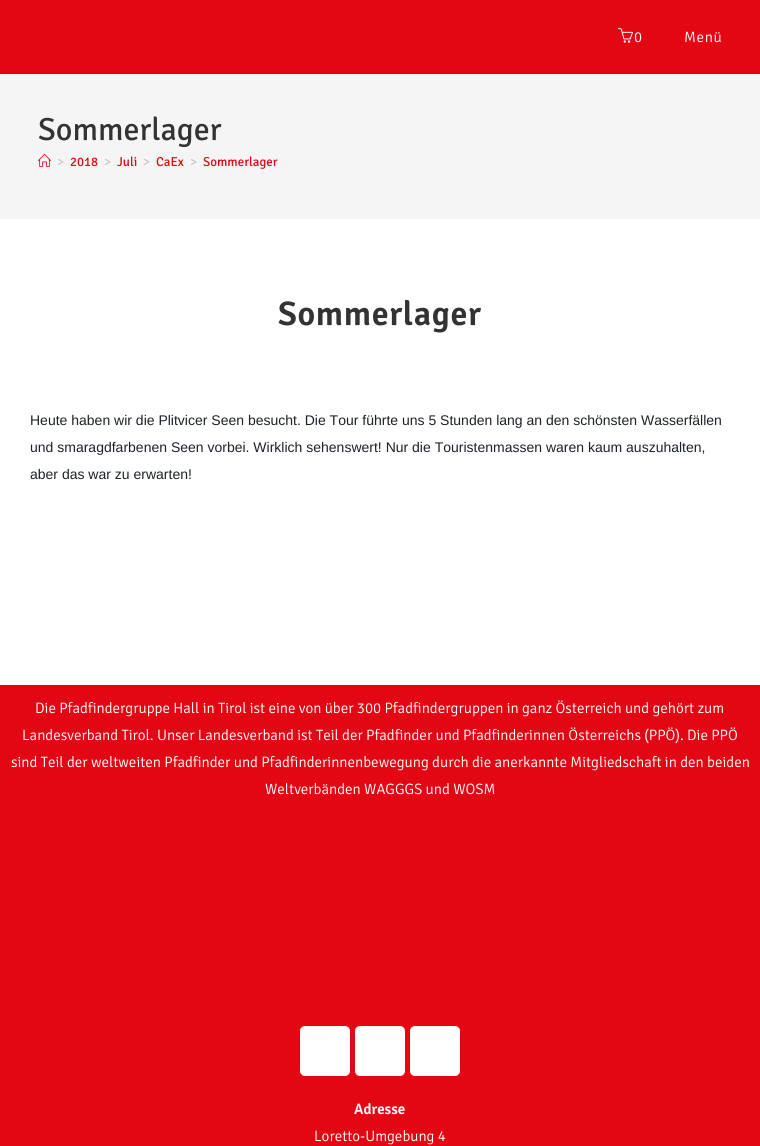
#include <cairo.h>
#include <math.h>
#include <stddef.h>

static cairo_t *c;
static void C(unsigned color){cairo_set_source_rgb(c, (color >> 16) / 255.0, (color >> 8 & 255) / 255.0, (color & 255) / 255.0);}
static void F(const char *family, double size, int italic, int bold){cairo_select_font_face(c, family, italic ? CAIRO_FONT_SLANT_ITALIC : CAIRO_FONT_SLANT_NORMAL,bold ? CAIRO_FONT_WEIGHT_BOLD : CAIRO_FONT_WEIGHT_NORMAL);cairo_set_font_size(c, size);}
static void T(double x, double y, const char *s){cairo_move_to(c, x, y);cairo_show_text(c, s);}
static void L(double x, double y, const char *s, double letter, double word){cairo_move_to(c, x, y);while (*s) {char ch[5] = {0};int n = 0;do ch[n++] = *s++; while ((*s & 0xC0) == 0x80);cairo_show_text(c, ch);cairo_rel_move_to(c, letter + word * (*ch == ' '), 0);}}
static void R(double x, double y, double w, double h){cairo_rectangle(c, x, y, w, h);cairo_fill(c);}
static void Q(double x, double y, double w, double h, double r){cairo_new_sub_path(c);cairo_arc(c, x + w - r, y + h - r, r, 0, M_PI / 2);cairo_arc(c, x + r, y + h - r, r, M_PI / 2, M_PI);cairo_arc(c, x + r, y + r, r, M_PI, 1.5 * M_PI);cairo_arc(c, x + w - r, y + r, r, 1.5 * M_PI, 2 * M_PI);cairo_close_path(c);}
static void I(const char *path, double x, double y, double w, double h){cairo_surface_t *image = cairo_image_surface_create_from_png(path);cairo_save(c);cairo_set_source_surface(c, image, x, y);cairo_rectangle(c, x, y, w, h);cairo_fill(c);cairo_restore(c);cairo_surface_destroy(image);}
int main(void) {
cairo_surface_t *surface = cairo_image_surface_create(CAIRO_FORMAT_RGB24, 760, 1146);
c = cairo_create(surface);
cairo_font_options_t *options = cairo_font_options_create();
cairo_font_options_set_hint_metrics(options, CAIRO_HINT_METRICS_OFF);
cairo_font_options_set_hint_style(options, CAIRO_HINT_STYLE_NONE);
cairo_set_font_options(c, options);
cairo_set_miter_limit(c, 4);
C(0xffffff);
cairo_paint(c);
C(0xe30613);
R(0,0,760,74);
I("1.png",618,28,15,15);
F("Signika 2 Light",15,0,0);
C(0xffffff);
L(634,42,"0",.6,0);
L(684,42,"Menü",.6,0);
C(0xf5f5f5);
R(0,74,760,145);
F("Signika Light",32,0,0);
C(0x333333);
T(38,140,"Sommerlager");
I("2.png",38,153,13,14);
F("Signika Light",13,0,0);
C(0xc6c6c6);
T(57,166,">");
C(0xe30613);
T(70,166,"2018");
C(0xc6c6c6);
T(104,166,">");
C(0xe30613);
T(117,166,"Juli");
C(0xc6c6c6);
T(143,166,">");
C(0xe30613);
T(156,166,"CaEx");
C(0xc6c6c6);
T(190,166,">");
C(0xe30613);
T(203,166,"Sommerlager");
F("Signika SemiBold",34,0,0);
C(0x333333);
L(278,325,"Sommerlager",.6,0);
F("Liberation Sans",14,0,0);
C(0x1d2129);
T(30,425,"Heute haben wir die Plitvicer Seen besucht. Die Tour führte uns 5 Stunden lang an den schönsten Wasserfällen");
T(30,452,"und smaragdfarbenen Seen vorbei. Wirklich sehenswert! Nur die Touristenmassen waren kaum auszuhalten,");
T(30,479,"aber das war zu erwarten!");
C(0xe30613);
R(0,685,760,461);
F("Signika 2 Light",15,0,0);
C(0xffffff);
T(35,713,"Die Pfadfindergruppe Hall in Tirol ist eine von über 300 Pfadfindergruppen in ganz Österreich und gehört zum");
T(22,740,"Landesverband Tirol. Unser Landesverband ist Teil der Pfadfinder und Pfadfinderinnen Österreichs (PPÖ). Die PPÖ");
T(11,767,"sind Teil der weltweiten Pfadfinder und Pfadfinderinnenbewegung durch die anerkannte Mitgliedschaft in den beiden");
T(265,794,"Weltverbänden WAGGGS und WOSM");
Q(300,1026,50,50,5);
cairo_fill(c);
Q(355,1026,50,50,5);
cairo_fill(c);
Q(410,1026,50,50,5);
cairo_fill(c);
F("Signika SemiBold",15,0,0);
T(354,1114,"Adresse");
F("Signika 2 Light",15,0,0);
T(314,1141,"Loretto-Umgebung 4");
cairo_surface_write_to_png(surface, "o.png");
cairo_font_options_destroy(options);
cairo_destroy(c);
cairo_surface_destroy(surface);
return 0;
}
